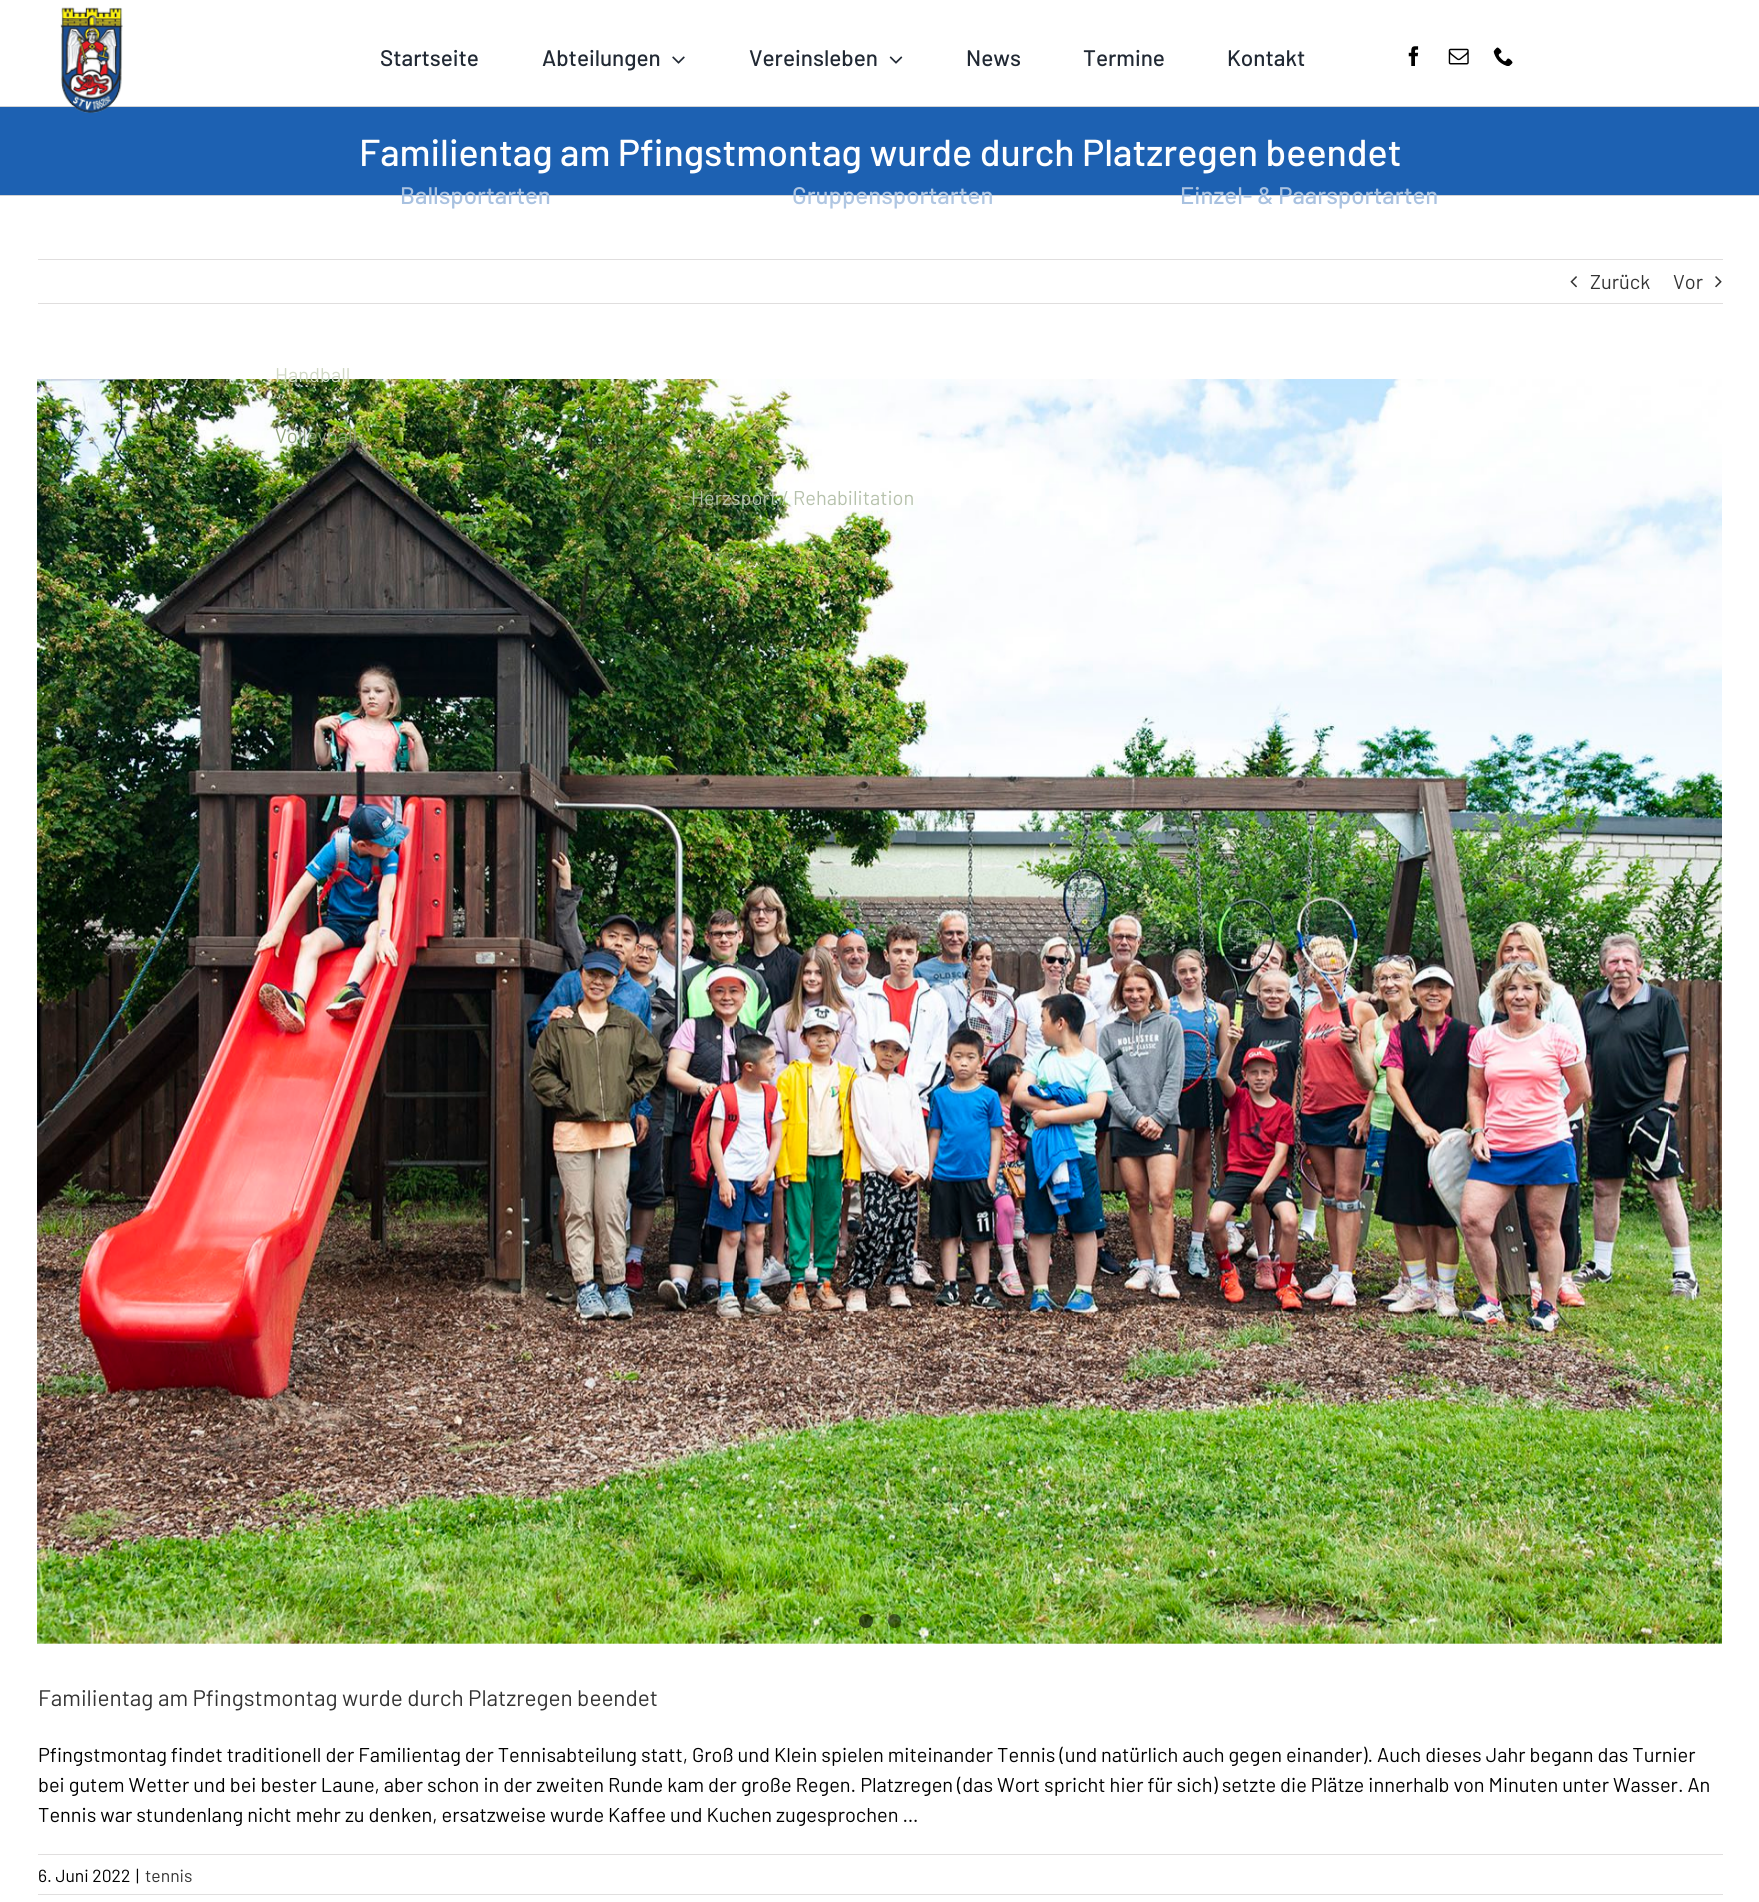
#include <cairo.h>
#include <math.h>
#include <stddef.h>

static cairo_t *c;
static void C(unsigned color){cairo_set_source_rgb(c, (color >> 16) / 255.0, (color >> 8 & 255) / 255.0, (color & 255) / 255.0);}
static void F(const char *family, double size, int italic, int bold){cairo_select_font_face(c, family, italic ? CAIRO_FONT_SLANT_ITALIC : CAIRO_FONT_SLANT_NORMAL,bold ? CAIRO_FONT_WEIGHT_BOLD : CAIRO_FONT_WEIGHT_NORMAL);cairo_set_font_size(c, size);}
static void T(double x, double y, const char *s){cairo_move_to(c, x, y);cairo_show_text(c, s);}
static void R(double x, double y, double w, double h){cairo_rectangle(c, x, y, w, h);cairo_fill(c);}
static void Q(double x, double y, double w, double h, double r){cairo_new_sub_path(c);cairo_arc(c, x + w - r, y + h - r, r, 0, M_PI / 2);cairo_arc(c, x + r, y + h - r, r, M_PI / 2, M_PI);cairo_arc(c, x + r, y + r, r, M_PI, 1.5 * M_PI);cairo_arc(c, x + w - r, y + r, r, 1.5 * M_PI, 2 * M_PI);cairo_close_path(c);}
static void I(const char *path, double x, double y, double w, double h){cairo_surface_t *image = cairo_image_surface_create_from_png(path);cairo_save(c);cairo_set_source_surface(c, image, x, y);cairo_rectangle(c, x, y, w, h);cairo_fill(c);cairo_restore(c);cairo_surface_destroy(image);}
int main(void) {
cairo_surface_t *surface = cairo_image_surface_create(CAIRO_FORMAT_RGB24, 1759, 1902);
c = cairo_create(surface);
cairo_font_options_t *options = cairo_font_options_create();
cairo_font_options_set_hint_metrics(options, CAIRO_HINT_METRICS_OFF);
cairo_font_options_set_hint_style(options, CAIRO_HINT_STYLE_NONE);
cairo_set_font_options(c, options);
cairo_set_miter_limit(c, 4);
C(0xffffff);
cairo_paint(c);
C(0x1d61b2);
R(0,107,1759,88);
C(0xd2d3d4);
R(0,106,1759,1);
I("1.png",60,7,63,106);
F("Barlow Medium",22.5,0,0);
C(0x212934);
T(542,66,"Abteilungen");
I("2.png",672,56,13,8);
C(0xd2d3d4);
R(0,195,1759,1);
F("Barlow Medium",24,0,0);
C(0xa8c1e0);
T(400,204,"Ballsportarten");
I("9.png",37,379,1685,1265);
F("Barlow",20,0,0);
C(0xd0d8c4);
T(275,382,"Handball");
C(0x90a279);
T(275,443,"Volleyball");
F("Barlow Medium",24,0,0);
C(0xafc6e2);
T(792,204,"Gruppensportarten");
F("Barlow",20,0,0);
C(0xb6c2ac);
T(691,505,"Herzsport / Rehabilitation");
C(0x759239);
T(691,566,"KITA- Kooperationen");
F("Barlow Medium",24,0,0);
C(0xa8c1e0);
T(1180,204,"Einzel- & Paarsportarten");
F("Barlow Medium",22.5,0,0);
C(0x212934);
T(380,66,"Startseite");
T(749,66,"Vereinsleben");
I("3.png",889,56,14,8);
T(966,66,"News");
T(1083,66,"Termine");
T(1227,66,"Kontakt");
I("4.png",1408,46,11,20);
I("5.png",1448,48,21,17);
I("6.png",1493,47,20,19);
F("Barlow Medium",37.5,0,0);
C(0xffffff);
T(359,166,"Familientag am Pfingstmontag wurde durch Platzregen beendet");
C(0xe0dede);
R(38,259,1685,1);
R(38,303,1685,1);
I("7.png",1570,276,7,12);
F("Barlow",20,0,0);
C(0x333333);
T(1590,289,"Zurück");
T(1673,289,"Vor");
I("8.png",1715,276,7,12);
cairo_set_source_rgba(c,0,0,0,0.6);
cairo_arc(c,866,1621,7,0,2 * M_PI);
cairo_fill(c);
cairo_set_source_rgba(c,0,0,0,0.5);
Q(888,1614,13,14,6.5);
cairo_fill(c);
F("Barlow",22.5,0,0);
C(0x333333);
T(38,1706,"Familientag am Pfingstmontag wurde durch Platzregen beendet");
F("Barlow",20,0,0);
C(0x000000);
T(38,1762,"Pfingstmontag findet traditionell der Familientag der Tennisabteilung statt, Groß und Klein spielen miteinander Tennis (und natürlich auch gegen einander). Auch dieses Jahr begann das Turnier");
T(38,1792,"bei gutem Wetter und bei bester Laune, aber schon in der zweiten Runde kam der große Regen. Platzregen (das Wort spricht hier für sich) setzte die Plätze innerhalb von Minuten unter Wasser. An");
T(38,1822,"Tennis war stundenlang nicht mehr zu denken, ersatzweise wurde Kaffee und Kuchen zugesprochen …");
C(0xe0dede);
R(38,1854,1685,1);
R(38,1894,1685,1);
F("Barlow",17.5,0,0);
C(0x000000);
T(38,1882,"6. Juni 2022");
T(136,1882,"|");
C(0x333333);
T(145,1882,"tennis");
cairo_surface_write_to_png(surface, "o.png");
cairo_font_options_destroy(options);
cairo_destroy(c);
cairo_surface_destroy(surface);
return 0;
}
